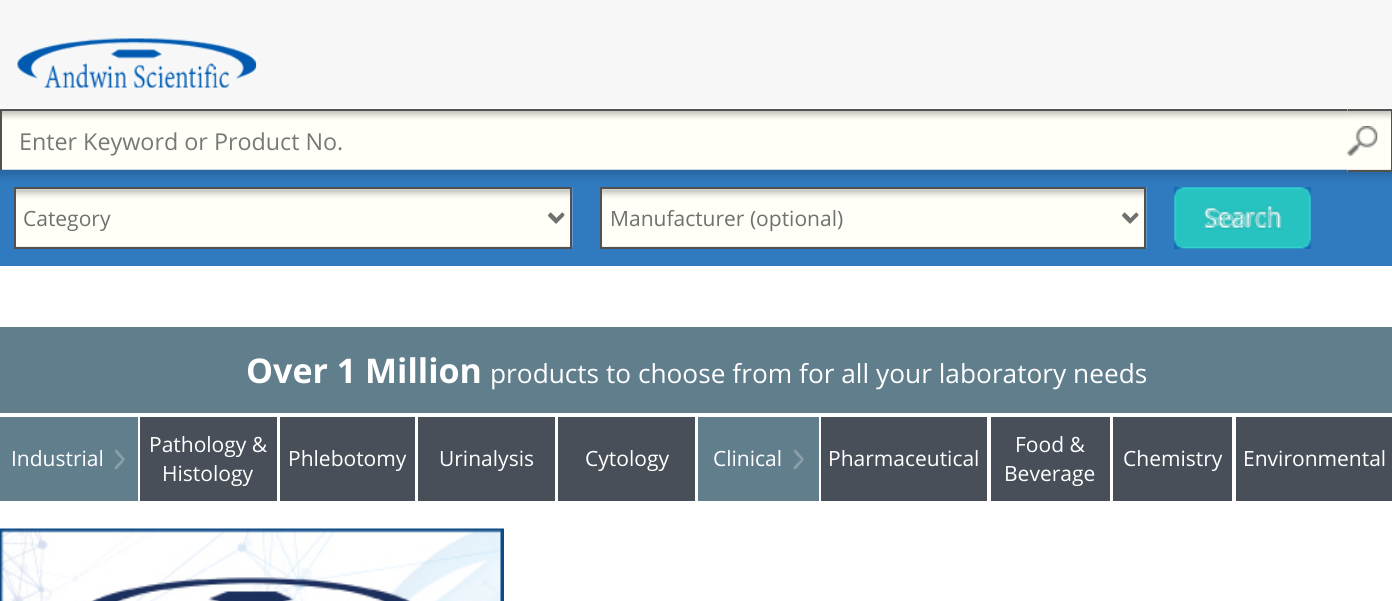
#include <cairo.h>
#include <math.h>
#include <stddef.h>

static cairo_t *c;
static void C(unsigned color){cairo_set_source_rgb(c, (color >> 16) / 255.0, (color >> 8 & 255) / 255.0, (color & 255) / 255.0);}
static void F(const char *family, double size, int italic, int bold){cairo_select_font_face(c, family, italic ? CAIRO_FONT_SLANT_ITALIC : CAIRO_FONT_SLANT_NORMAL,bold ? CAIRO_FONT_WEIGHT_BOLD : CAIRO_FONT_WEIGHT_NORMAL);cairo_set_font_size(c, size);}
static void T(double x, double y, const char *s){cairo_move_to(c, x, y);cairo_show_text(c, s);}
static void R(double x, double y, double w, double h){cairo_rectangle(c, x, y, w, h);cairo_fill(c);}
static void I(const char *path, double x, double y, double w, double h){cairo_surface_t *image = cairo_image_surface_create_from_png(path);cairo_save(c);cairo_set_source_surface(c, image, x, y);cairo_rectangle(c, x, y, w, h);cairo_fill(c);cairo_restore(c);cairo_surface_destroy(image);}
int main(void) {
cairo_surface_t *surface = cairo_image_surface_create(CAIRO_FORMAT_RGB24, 1392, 601);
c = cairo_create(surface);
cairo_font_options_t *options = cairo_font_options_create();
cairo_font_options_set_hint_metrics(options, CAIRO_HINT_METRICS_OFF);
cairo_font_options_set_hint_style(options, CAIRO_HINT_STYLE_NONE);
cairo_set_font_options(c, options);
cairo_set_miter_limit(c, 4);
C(0xffffff);
cairo_paint(c);
C(0xf7f7f7);
R(0,0,1392,109);
I("1.png",17,38,240,50);
I("2.png",0,108,1381,62);
C(0x515151);
R(0,109,1348,2);
R(0,109,2,64);
F("Open Sans",23.3,0,0);
C(0x787878);
T(19,150,"Enter Keyword or Product No.");
I("5.png",0,169,1392,97);
I("3.png",1347,108,45,64);
C(0x515151);
R(1348,109,44,2);
R(1391,109,1,63);
R(1348,170,44,2);
I("4.png",1347,126,31,30);
I("6.png",16,187,557,62);
cairo_rectangle(c,15,188,556,60);
cairo_stroke(c);
cairo_new_path(c);
cairo_move_to(c,549,214.5);
cairo_line_to(c,556,221.5);
cairo_line_to(c,563,214.5);
C(0x707070);
cairo_set_line_width(c,3.5);
cairo_stroke(c);
F("Open Sans",21,0,0);
T(23,226,"Category");
I("7.png",602,187,545,62);
cairo_rectangle(c,601,188,544,60);
C(0x515151);
cairo_set_line_width(c,2);
cairo_stroke(c);
cairo_new_path(c);
cairo_move_to(c,1123,214.5);
cairo_line_to(c,1130,221.5);
cairo_line_to(c,1137,214.5);
C(0x707070);
cairo_set_line_width(c,3.5);
cairo_stroke(c);
T(610,226,"Manufacturer (optional)");
C(0x1869b3);
R(1174,187,137,62);
I("8.png",1174,187,137,62);
F("Liberation Sans",23.3,0,0);
C(0x7cd4d2);
T(1206,226,"Search");
C(0x617e8c);
R(0,327,1392,86);
F("Open Sans",34,0,1);
C(0xffffff);
T(246,383,"Over 1 Million");
F("Open Sans",26.25,0,0);
T(490,383,"products to choose from for all your laboratory needs");
C(0x617e8c);
R(0,417,138,84);
F("Open Sans",21,0,0);
C(0xffffff);
T(11,466,"Industrial");
I("9.png",113,449,12,20);
C(0x484f59);
R(140,417,137,84);
C(0xffffff);
T(149,452,"Pathology &");
T(162,481,"Histology");
C(0x484f59);
R(280,417,135,84);
C(0xffffff);
T(288,466,"Phlebotomy");
C(0x484f59);
R(418,417,137,84);
C(0xffffff);
T(439,466,"Urinalysis");
C(0x484f59);
R(558,417,137,84);
C(0xffffff);
T(585,466,"Cytology");
C(0x617e8c);
R(698,417,121,84);
C(0xffffff);
T(713,466,"Clinical");
I("10.png",792,449,12,20);
C(0x484f59);
R(821,417,166,84);
C(0xffffff);
T(828,466,"Pharmaceutical");
C(0x484f59);
R(991,417,119,84);
C(0xffffff);
T(1015,452,"Food &");
T(1004,481,"Beverage");
C(0x484f59);
R(1113,417,119,84);
C(0xffffff);
T(1123,466,"Chemistry");
C(0x484f59);
R(1236,417,156,84);
C(0xffffff);
T(1243,466,"Environmental");
I("11.png",0,528,504,73);
cairo_surface_write_to_png(surface, "o.png");
cairo_font_options_destroy(options);
cairo_destroy(c);
cairo_surface_destroy(surface);
return 0;
}
